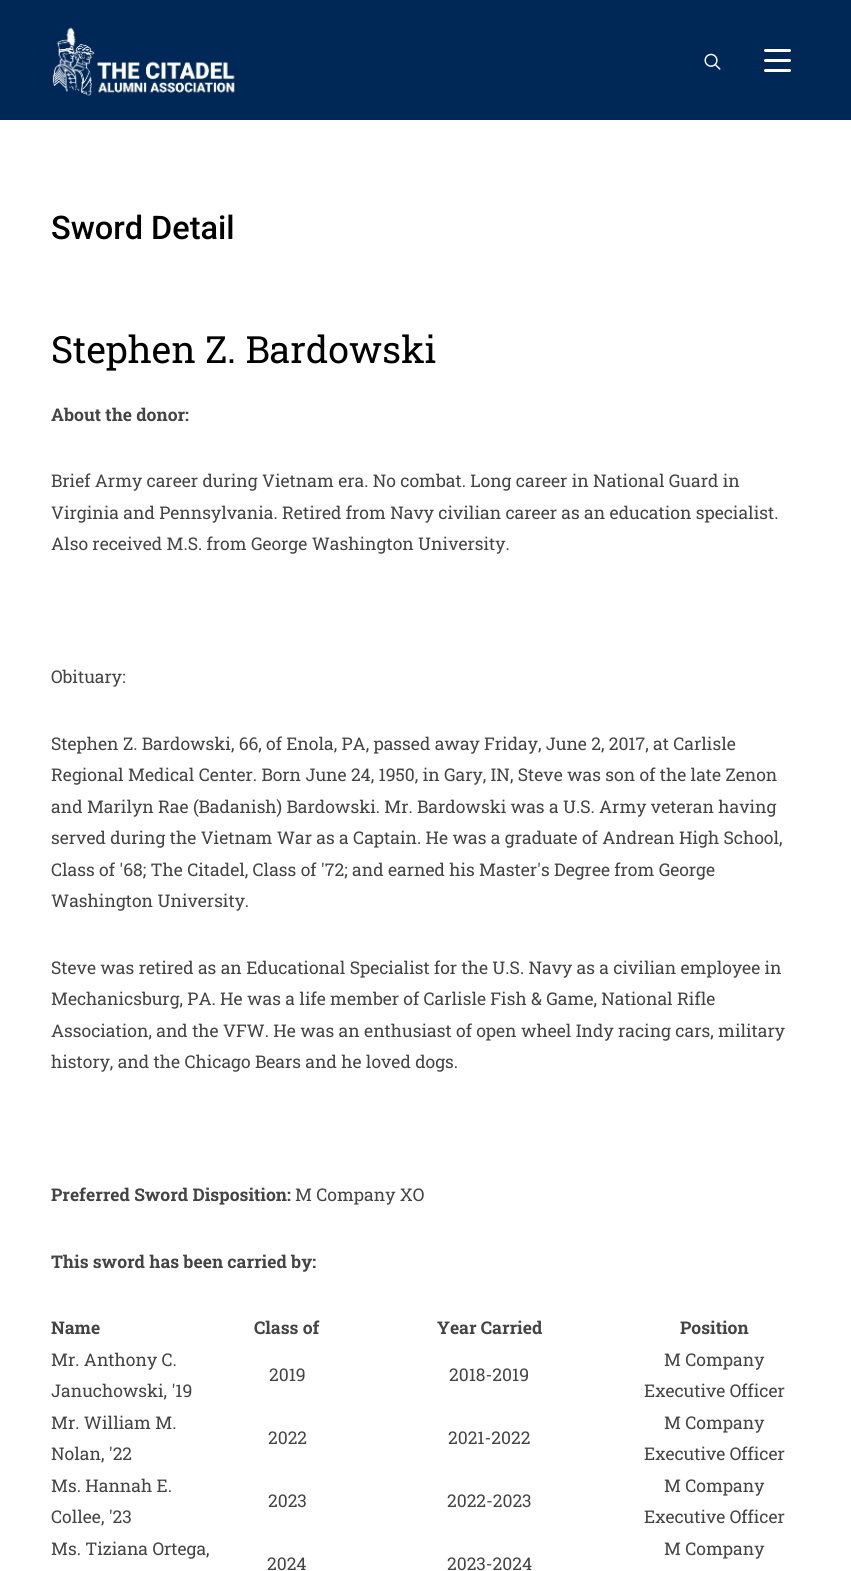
#include <cairo.h>
#include <math.h>
#include <stddef.h>

static cairo_t *c;
static void C(unsigned color){cairo_set_source_rgb(c, (color >> 16) / 255.0, (color >> 8 & 255) / 255.0, (color & 255) / 255.0);}
static void F(const char *family, double size, int italic, int bold){cairo_select_font_face(c, family, italic ? CAIRO_FONT_SLANT_ITALIC : CAIRO_FONT_SLANT_NORMAL,bold ? CAIRO_FONT_WEIGHT_BOLD : CAIRO_FONT_WEIGHT_NORMAL);cairo_set_font_size(c, size);}
static void T(double x, double y, const char *s){cairo_move_to(c, x, y);cairo_show_text(c, s);}
static void R(double x, double y, double w, double h){cairo_rectangle(c, x, y, w, h);cairo_fill(c);}
static void Q(double x, double y, double w, double h, double r){cairo_new_sub_path(c);cairo_arc(c, x + w - r, y + h - r, r, 0, M_PI / 2);cairo_arc(c, x + r, y + h - r, r, M_PI / 2, M_PI);cairo_arc(c, x + r, y + r, r, M_PI, 1.5 * M_PI);cairo_arc(c, x + w - r, y + r, r, 1.5 * M_PI, 2 * M_PI);cairo_close_path(c);}
static void I(const char *path, double x, double y, double w, double h){cairo_surface_t *image = cairo_image_surface_create_from_png(path);cairo_save(c);cairo_set_source_surface(c, image, x, y);cairo_rectangle(c, x, y, w, h);cairo_fill(c);cairo_restore(c);cairo_surface_destroy(image);}
int main(void) {
cairo_surface_t *surface = cairo_image_surface_create(CAIRO_FORMAT_RGB24, 851, 1571);
c = cairo_create(surface);
cairo_font_options_t *options = cairo_font_options_create();
cairo_font_options_set_hint_metrics(options, CAIRO_HINT_METRICS_OFF);
cairo_font_options_set_hint_style(options, CAIRO_HINT_STYLE_NONE);
cairo_set_font_options(c, options);
cairo_set_miter_limit(c, 4);
C(0xffffff);
cairo_paint(c);
C(0x002856);
R(0,0,851,120);
I("1.png",52,27,183,69);
I("2.png",704,53,17,17);
C(0xffffff);
Q(764,49,27,3,1.5);
cairo_fill(c);
Q(764,59,27,3,1.5);
cairo_fill(c);
Q(764,69,27,3,1.5);
cairo_fill(c);
F("Roboto Medium",32.5,0,0);
C(0x000000);
T(51,239,"Sword Detail");
F("Roboto Slab",37.5,0,0);
T(51,363,"Stephen Z. Bardowski");
F("Roboto Slab",17.5,0,1);
C(0x444444);
T(51,421,"About the donor:");
F("Roboto Slab",17.5,0,0);
T(51,487,"Brief Army career during Vietnam era. No combat. Long career in National Guard in");
T(51,519,"Virginia and Pennsylvania. Retired from Navy civilian career as an education specialist.");
T(51,550,"Also received M.S. from George Washington University.");
T(51,683,"Obituary:");
T(51,750,"Stephen Z. Bardowski, 66, of Enola, PA, passed away Friday, June 2, 2017, at Carlisle");
T(51,781,"Regional Medical Center. Born June 24, 1950, in Gary, IN, Steve was son of the late Zenon");
T(51,813,"and Marilyn Rae (Badanish) Bardowski. Mr. Bardowski was a U.S. Army veteran having");
T(51,844,"served during the Vietnam War as a Captain. He was a graduate of Andrean High School,");
T(51,876,"Class of '68; The Citadel, Class of '72; and earned his Master's Degree from George");
T(51,907,"Washington University.");
T(51,974,"Steve was retired as an Educational Specialist for the U.S. Navy as a civilian employee in");
T(51,1005,"Mechanicsburg, PA. He was a life member of Carlisle Fish & Game, National Rifle");
T(51,1037,"Association, and the VFW. He was an enthusiast of open wheel Indy racing cars, military");
T(51,1068,"history, and the Chicago Bears and he loved dogs.");
F("Roboto Slab",17.5,0,1);
T(51,1201,"Preferred Sword Disposition:");
F("Roboto Slab",17.5,0,0);
T(295,1201,"M Company XO");
F("Roboto Slab",17.5,0,1);
T(51,1268,"This sword has been carried by:");
T(51,1334,"Name");
T(254,1334,"Class of");
T(437,1334,"Year Carried");
T(680,1334,"Position");
F("Roboto Slab",17.5,0,0);
T(51,1366,"Mr. Anthony C.");
T(51,1397,"Januchowski, '19");
T(269,1381,"2019");
T(449,1381,"2018-2019");
T(664,1366,"M Company");
T(644,1397,"Executive Officer");
T(51,1429,"Mr. William M.");
T(51,1460,"Nolan, '22");
T(268,1444,"2022");
T(448,1444,"2021-2022");
T(664,1429,"M Company");
T(644,1460,"Executive Officer");
T(51,1492,"Ms. Hannah E.");
T(51,1523,"Collee, '23");
T(268,1507,"2023");
T(447,1507,"2022-2023");
T(664,1492,"M Company");
T(644,1523,"Executive Officer");
T(51,1555,"Ms. Tiziana Ortega,");
T(664,1555,"M Company");
T(267,1570,"2024");
T(447,1570,"2023-2024");
cairo_surface_write_to_png(surface, "o.png");
cairo_font_options_destroy(options);
cairo_destroy(c);
cairo_surface_destroy(surface);
return 0;
}
